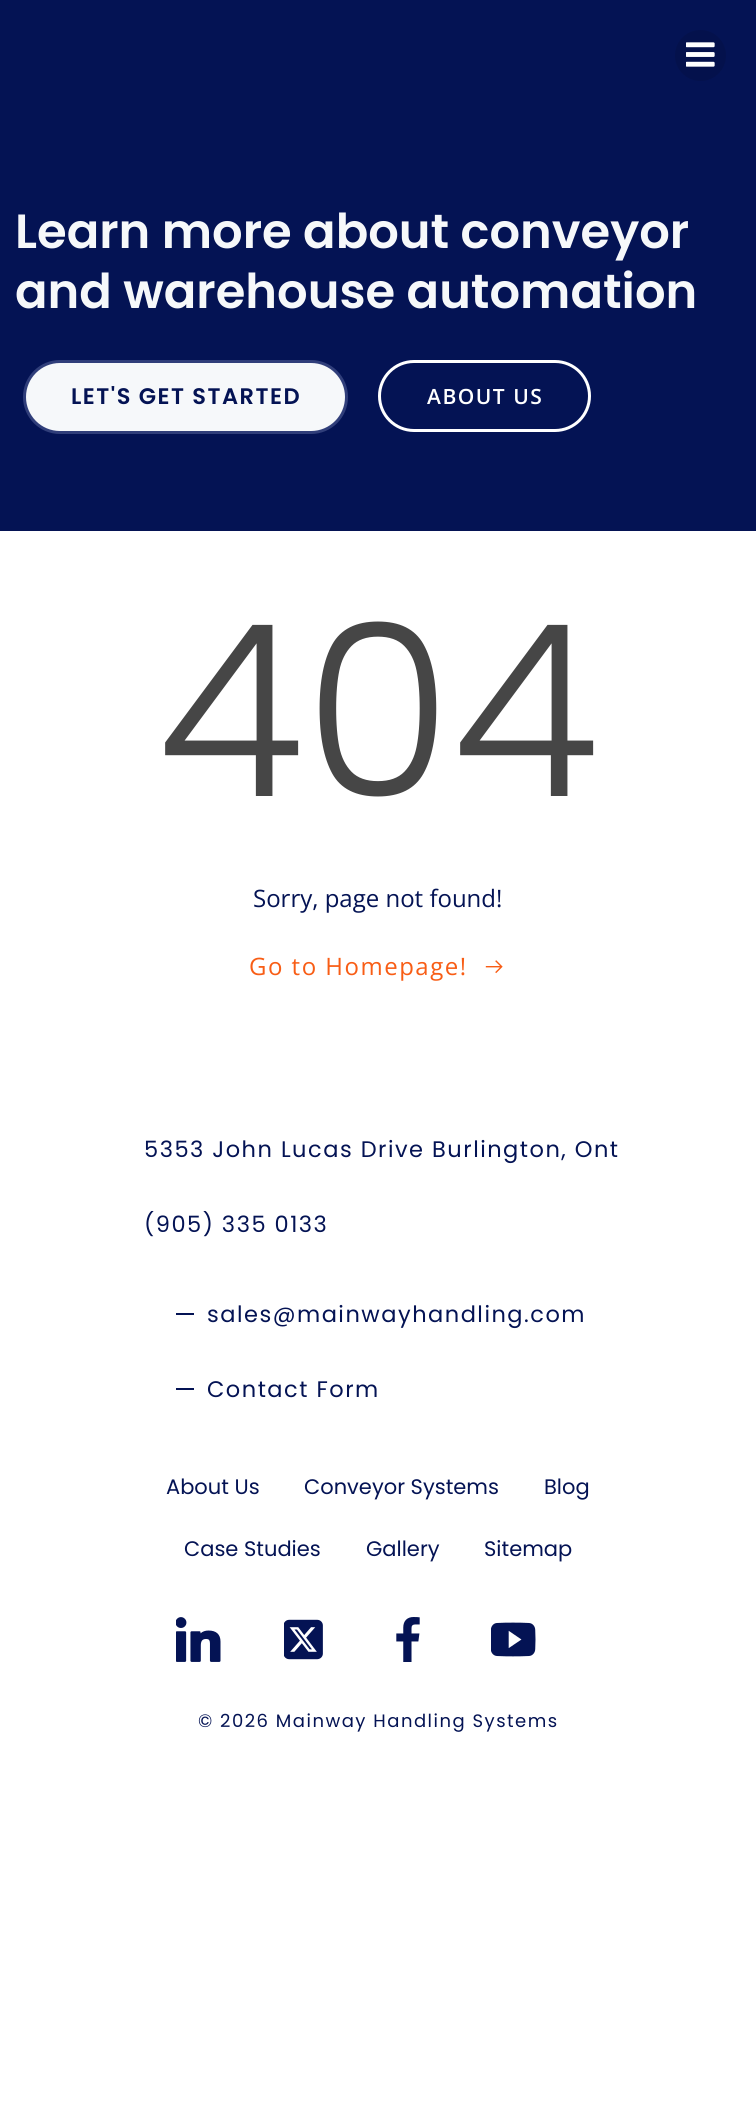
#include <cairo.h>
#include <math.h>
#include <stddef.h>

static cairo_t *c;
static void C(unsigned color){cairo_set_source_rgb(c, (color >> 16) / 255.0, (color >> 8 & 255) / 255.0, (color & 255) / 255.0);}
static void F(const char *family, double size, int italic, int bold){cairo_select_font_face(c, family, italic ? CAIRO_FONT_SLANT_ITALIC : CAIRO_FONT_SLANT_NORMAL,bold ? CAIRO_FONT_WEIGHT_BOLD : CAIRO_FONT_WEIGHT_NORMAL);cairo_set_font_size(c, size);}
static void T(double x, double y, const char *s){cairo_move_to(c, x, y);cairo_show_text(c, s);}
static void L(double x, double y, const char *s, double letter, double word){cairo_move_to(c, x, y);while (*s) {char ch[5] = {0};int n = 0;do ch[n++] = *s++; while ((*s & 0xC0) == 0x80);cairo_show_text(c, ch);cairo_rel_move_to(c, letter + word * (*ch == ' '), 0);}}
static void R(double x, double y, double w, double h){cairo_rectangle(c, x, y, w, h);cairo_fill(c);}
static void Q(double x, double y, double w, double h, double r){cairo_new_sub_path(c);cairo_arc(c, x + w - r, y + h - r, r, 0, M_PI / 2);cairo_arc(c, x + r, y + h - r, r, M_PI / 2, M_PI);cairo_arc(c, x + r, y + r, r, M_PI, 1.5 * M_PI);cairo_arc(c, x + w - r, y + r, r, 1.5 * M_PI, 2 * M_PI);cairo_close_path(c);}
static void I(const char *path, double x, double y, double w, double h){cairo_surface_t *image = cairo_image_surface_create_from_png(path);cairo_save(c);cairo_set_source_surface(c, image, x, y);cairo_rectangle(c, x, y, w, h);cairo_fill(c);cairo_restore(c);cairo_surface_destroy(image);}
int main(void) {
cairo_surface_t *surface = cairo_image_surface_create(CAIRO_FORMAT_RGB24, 756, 2106);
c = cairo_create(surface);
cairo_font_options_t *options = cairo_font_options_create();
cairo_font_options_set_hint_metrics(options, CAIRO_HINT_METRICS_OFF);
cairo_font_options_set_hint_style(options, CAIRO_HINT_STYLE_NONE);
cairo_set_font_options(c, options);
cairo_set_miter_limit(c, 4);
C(0xffffff);
cairo_paint(c);
C(0x041354);
R(0,0,756,531);
C(0x04114c);
cairo_arc(c,700.5,55.5,25.5,0,2 * M_PI);
cairo_fill(c);
I("1.png",686,42,29,25);
F("Poppins SemiBold",48,0,0);
C(0xf6f8fa);
T(15,248,"Learn more about conveyor");
T(15,308,"and warehouse automation");
Q(24.5,361.5,322,71,35.5);
cairo_fill_preserve(c);
C(0x303e7a);
cairo_set_line_width(c,3);
cairo_stroke(c);
F("Poppins SemiBold",22.5,0,0);
C(0x041354);
L(71,404,"LET'S GET STARTED",1.5,0);
Q(379.5,361.5,210,69,34.5);
C(0xffffff);
cairo_stroke(c);
F("Open Sans SemiBold",21,0,0);
L(427,404,"ABOUT US",1.5,0);
F("Poppins Light",240,0,0);
C(0x464646);
T(157,796,"404");
F("Open Sans",24,0,0);
C(0x041354);
T(253,907,"Sorry, page not found!");
C(0xf85d15);
L(249,975,"Go to Homepage!",1.5,0);
I("2.png",485,960,18,14);
F("Poppins",22.5,0,0);
C(0x041354);
L(144,1157,"5353 John Lucas Drive Burlington, Ont",1.5,0);
L(144,1232,"(905) 335 0133",1.5,0);
R(176,1313,18,2);
L(207,1322,"sales@mainwayhandling.com",1.5,0);
R(176,1388,18,2);
L(207,1397,"Contact Form",1.5,0);
F("Poppins",21,0,0);
T(166,1494,"About Us");
T(304,1494,"Conveyor Systems");
T(544,1494,"Blog");
T(184,1556,"Case Studies");
T(366,1556,"Gallery");
T(484,1556,"Sitemap");
I("3.png",176,1617,45,45);
I("4.png",284,1619,39,41);
I("5.png",396,1617,24,45);
I("6.png",491,1622,45,35);
F("Poppins",18,0,0);
L(198,1727,"© 2026 Mainway Handling Systems",1.5,0);
cairo_surface_write_to_png(surface, "o.png");
cairo_font_options_destroy(options);
cairo_destroy(c);
cairo_surface_destroy(surface);
return 0;
}
